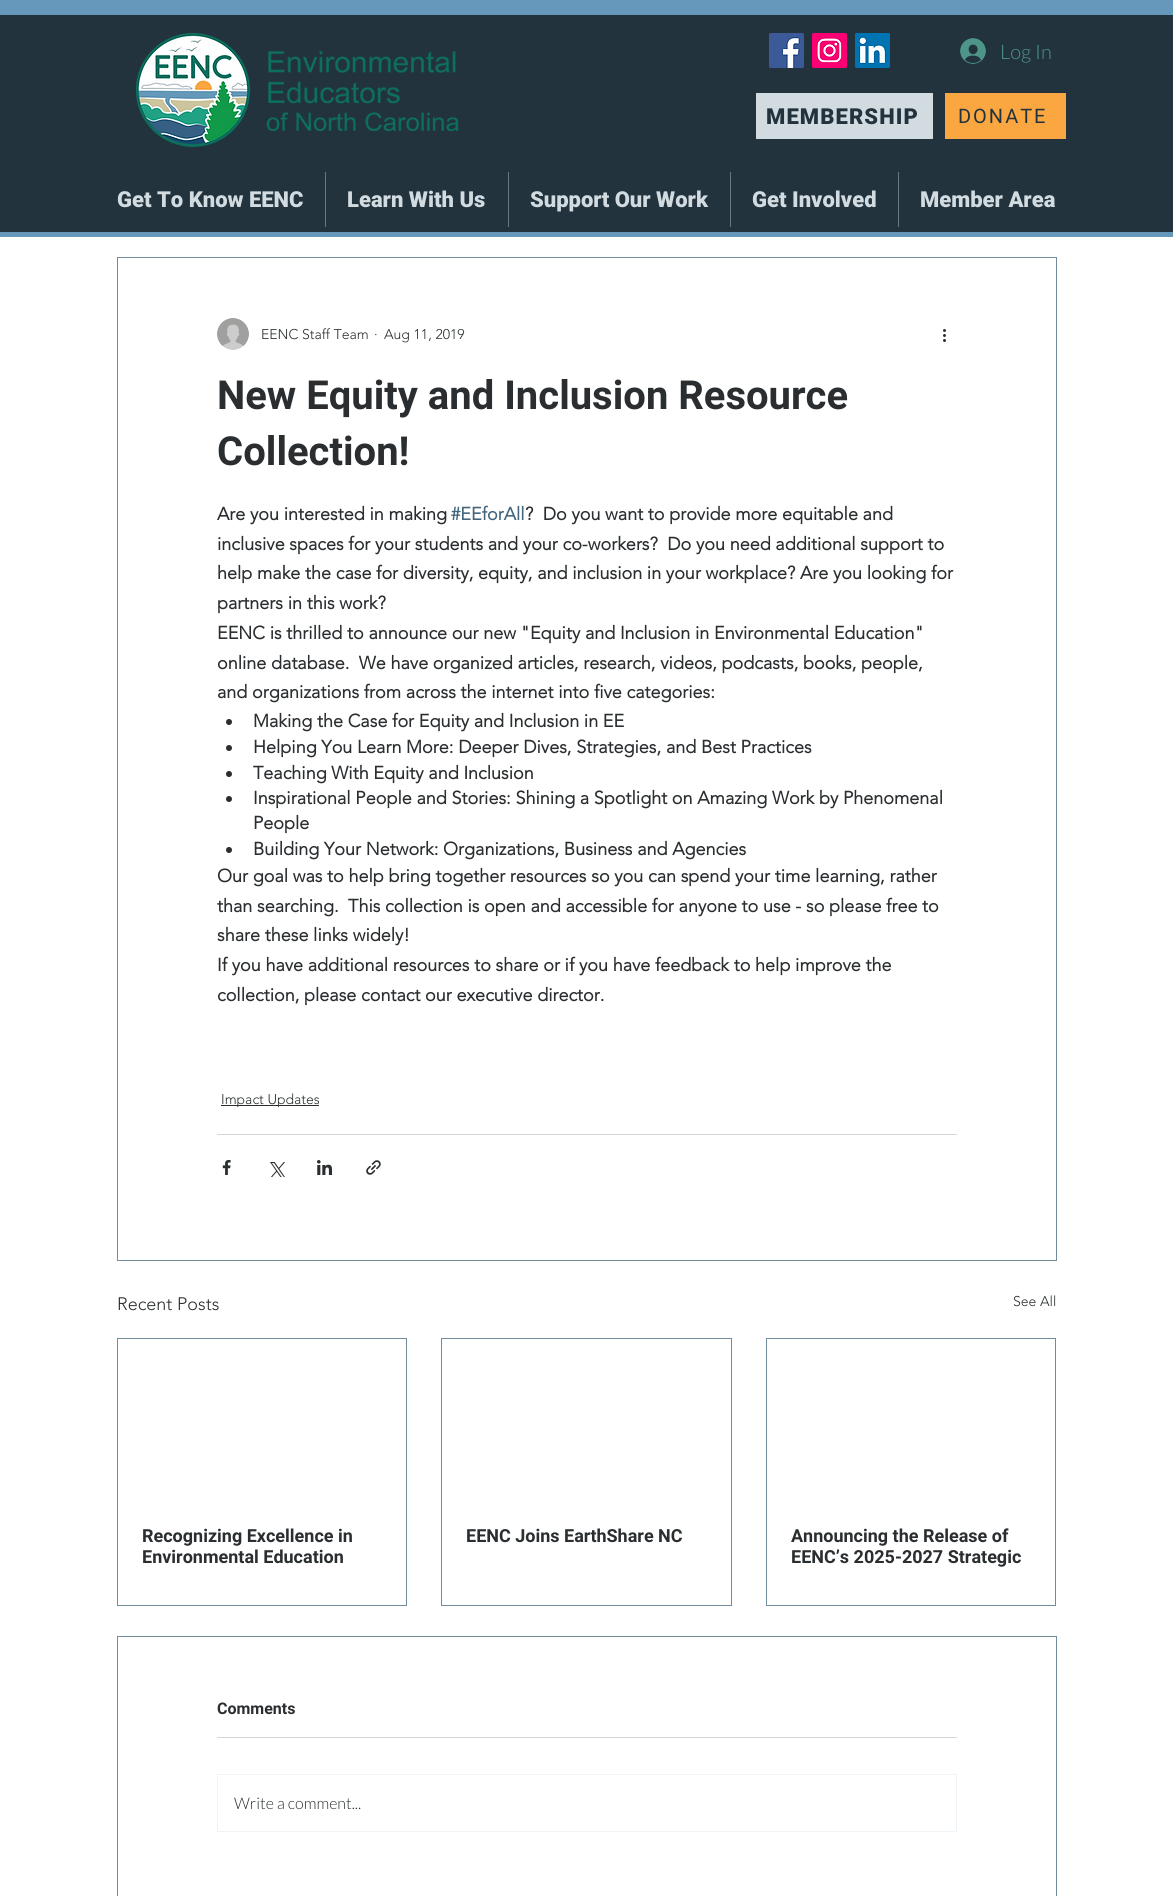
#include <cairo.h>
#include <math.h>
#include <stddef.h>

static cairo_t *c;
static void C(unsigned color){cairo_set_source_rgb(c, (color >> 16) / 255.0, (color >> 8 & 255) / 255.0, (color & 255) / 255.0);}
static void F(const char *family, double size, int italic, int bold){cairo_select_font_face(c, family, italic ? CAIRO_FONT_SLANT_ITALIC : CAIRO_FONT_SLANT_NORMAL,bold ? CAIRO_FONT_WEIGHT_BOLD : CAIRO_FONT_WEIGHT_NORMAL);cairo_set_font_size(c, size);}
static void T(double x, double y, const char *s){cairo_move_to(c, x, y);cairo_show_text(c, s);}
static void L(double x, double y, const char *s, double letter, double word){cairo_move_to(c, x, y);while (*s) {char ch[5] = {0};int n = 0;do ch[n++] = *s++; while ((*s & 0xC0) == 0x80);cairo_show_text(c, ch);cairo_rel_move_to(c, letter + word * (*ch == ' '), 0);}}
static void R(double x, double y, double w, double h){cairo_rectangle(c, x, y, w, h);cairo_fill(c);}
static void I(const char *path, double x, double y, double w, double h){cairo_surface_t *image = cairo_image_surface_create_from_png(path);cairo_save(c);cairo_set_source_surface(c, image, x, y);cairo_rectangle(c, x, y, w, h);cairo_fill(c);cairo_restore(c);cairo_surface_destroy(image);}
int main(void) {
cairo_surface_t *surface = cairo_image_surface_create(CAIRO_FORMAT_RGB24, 1173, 1896);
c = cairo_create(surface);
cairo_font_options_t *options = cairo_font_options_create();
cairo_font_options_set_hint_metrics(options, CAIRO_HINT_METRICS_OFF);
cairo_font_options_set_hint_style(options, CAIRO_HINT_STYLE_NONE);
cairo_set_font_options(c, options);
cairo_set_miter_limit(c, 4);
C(0xffffff);
cairo_paint(c);
C(0x22333e);
R(0,15,1173,217);
C(0x6598ba);
R(0,232,1173,5);
R(0,0,1173,15);
I("1.png",136,33,323,114);
I("2.png",769,33,35,35);
I("3.png",812,33,35,35);
I("4.png",855,33,35,35);
I("5.png",960,38,26,26);
F("Lato Light",20,0,0);
C(0x4d9489);
T(1000,59,"Log In");
C(0xd1dbe0);
R(756,93,177,46);
F("Roboto Black",22,0,0);
C(0x22333e);
L(766,124,"MEMBERSHIP",1.1,0);
C(0xfaa641);
R(945,93,121,46);
F("Roboto",20,0,0);
C(0x22333e);
L(958,123,"DONATE",2,0);
F("Roboto Black",22,0,0);
C(0xd1dbe0);
T(117,207,"Get To Know EENC");
C(0x6a7880);
R(325,172,1,55);
C(0xd1dbe0);
T(347,207,"Learn With Us");
C(0x6a7880);
R(508,172,1,55);
C(0xd1dbe0);
T(530,207,"Support Our Work");
C(0x6a7880);
R(730,172,1,55);
C(0xd1dbe0);
T(752,207,"Get Involved");
C(0x6a7880);
R(898,172,1,55);
C(0xd1dbe0);
T(920,207,"Member Area");
cairo_rectangle(c,117.5,257.5,939,1003);
C(0x728c9d);
cairo_set_line_width(c,1);
cairo_stroke(c);
I("6.png",217,318,32,32);
F("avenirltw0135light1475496 Light",14,0,0);
C(0x2a2e30);
T(261,339,"EENC Staff Team");
T(374,339,"·");
T(384,339,"Aug 11, 2019");
I("7.png",943,329,3,13);
F("Roboto",40,0,1);
T(217,409,"New Equity and Inclusion Resource");
T(217,465,"Collection!");
F("avenirltw0135light1475496",18,0,1);
T(217,520,"Are you interested in making");
C(0x43657c);
T(451,520,"#EEforAll");
C(0x2a2e30);
T(525,520,"?  Do you want to provide more equitable and");
T(217,550,"inclusive spaces for your students and your co-workers?  Do you need additional support to");
T(217,579,"help make the case for diversity, equity, and inclusion in your workplace? Are you looking for");
T(217,609,"partners in this work?");
T(217,639,"EENC is thrilled to announce our new \"Equity and Inclusion in Environmental Education\"");
T(217,669,"online database.  We have organized articles, research, videos, podcasts, books, people,");
T(217,698,"and organizations from across the internet into five categories:");
cairo_new_path(c);
cairo_arc(c,229,722,3,0,2 * M_PI);
cairo_fill(c);
T(253,727,"Making the Case for Equity and Inclusion in EE");
cairo_new_path(c);
cairo_arc(c,229,748,3,0,2 * M_PI);
cairo_fill(c);
T(253,753,"Helping You Learn More: Deeper Dives, Strategies, and Best Practices");
cairo_new_path(c);
cairo_arc(c,229,774,3,0,2 * M_PI);
cairo_fill(c);
T(253,779,"Teaching With Equity and Inclusion");
cairo_new_path(c);
cairo_arc(c,229,799,3,0,2 * M_PI);
cairo_fill(c);
T(253,804,"Inspirational People and Stories: Shining a Spotlight on Amazing Work by Phenomenal");
T(253,829,"People");
cairo_new_path(c);
cairo_arc(c,229,850,3,0,2 * M_PI);
cairo_fill(c);
T(253,855,"Building Your Network: Organizations, Business and Agencies");
T(217,882,"Our goal was to help bring together resources so you can spend your time learning, rather");
T(217,912,"than searching.  This collection is open and accessible for anyone to use - so please free to");
T(217,941,"share these links widely!");
T(217,971,"If you have additional resources to share or if you have feedback to help improve the");
T(217,1001,"collection, please contact our executive director.");
R(221,1105,98,1);
F("avenirltw0135light1475496 Light",14,0,0);
T(221,1104,"Impact Updates");
C(0xd4d5d6);
R(217,1134,740,1);
I("8.png",222,1160,9,15);
I("9.png",270,1162,15,15);
I("10.png",317,1160,15,15);
I("11.png",366,1160,15,15);
F("avenirltw0135light1475496 Light",18,0,0);
C(0x2a2e30);
T(117,1310,"Recent Posts");
F("avenirltw0135light1475496 Light",14,0,0);
T(1013,1306,"See All");
cairo_rectangle(c,117.5,1338.5,289,267);
C(0x728c9d);
cairo_stroke(c);
F("Roboto",18,0,1);
C(0x2a2e30);
T(142,1542,"Recognizing Excellence in");
T(142,1563,"Environmental Education");
cairo_rectangle(c,441.5,1338.5,290,267);
C(0x728c9d);
cairo_stroke(c);
C(0x2a2e30);
T(466,1542,"EENC Joins EarthShare NC");
cairo_rectangle(c,766.5,1338.5,289,267);
C(0x728c9d);
cairo_stroke(c);
C(0x2a2e30);
T(791,1542,"Announcing the Release of");
T(791,1563,"EENC’s 2025-2027 Strategic");
cairo_rectangle(c,117.5,1636.5,939,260);
C(0x728c9d);
cairo_stroke(c);
F("Roboto",16,0,1);
C(0x2a2e30);
T(217,1714,"Comments");
C(0xd4d5d6);
R(217,1737,740,1);
cairo_rectangle(c,217.5,1774.5,739,57);
C(0xeef4f8);
cairo_stroke(c);
F("Lato Light",16,0,0);
C(0x2a2e30);
T(234,1809,"Write a comment...");
cairo_surface_write_to_png(surface, "o.png");
cairo_font_options_destroy(options);
cairo_destroy(c);
cairo_surface_destroy(surface);
return 0;
}
